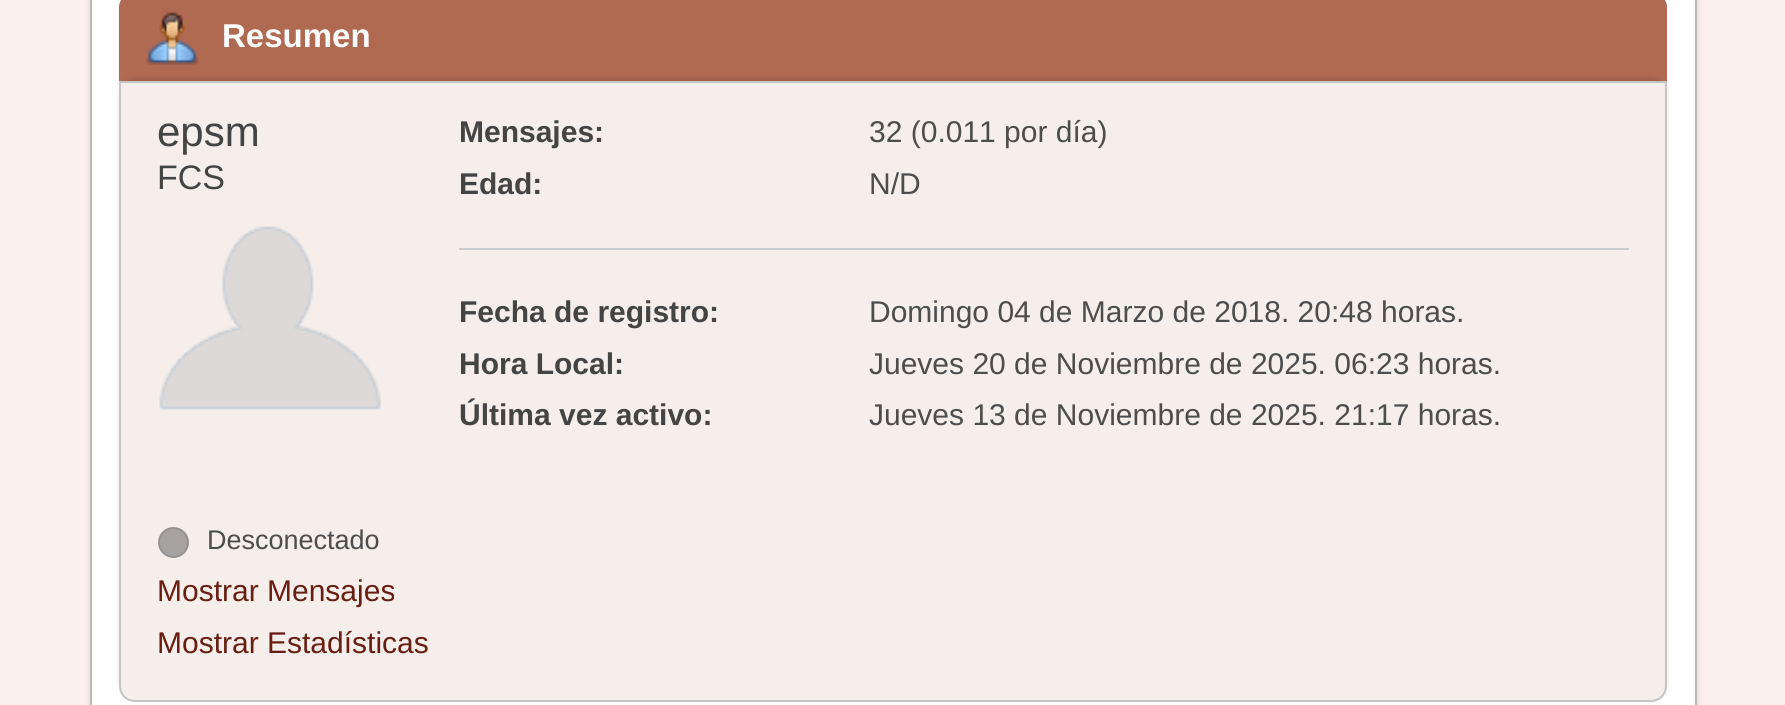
#include <cairo.h>
#include <math.h>
#include <stddef.h>

static cairo_t *c;
static void C(unsigned color){cairo_set_source_rgb(c, (color >> 16) / 255.0, (color >> 8 & 255) / 255.0, (color & 255) / 255.0);}
static void F(const char *family, double size, int italic, int bold){cairo_select_font_face(c, family, italic ? CAIRO_FONT_SLANT_ITALIC : CAIRO_FONT_SLANT_NORMAL,bold ? CAIRO_FONT_WEIGHT_BOLD : CAIRO_FONT_WEIGHT_NORMAL);cairo_set_font_size(c, size);}
static void T(double x, double y, const char *s){cairo_move_to(c, x, y);cairo_show_text(c, s);}
static void R(double x, double y, double w, double h){cairo_rectangle(c, x, y, w, h);cairo_fill(c);}
static void Q(double x, double y, double w, double h, double r){cairo_new_sub_path(c);cairo_arc(c, x + w - r, y + h - r, r, 0, M_PI / 2);cairo_arc(c, x + r, y + h - r, r, M_PI / 2, M_PI);cairo_arc(c, x + r, y + r, r, M_PI, 1.5 * M_PI);cairo_arc(c, x + w - r, y + r, r, 1.5 * M_PI, 2 * M_PI);cairo_close_path(c);}
static void S(double x, double y, double w, double h, double r, double blur, double alpha){cairo_push_group_with_content(c, CAIRO_CONTENT_ALPHA);cairo_set_operator(c, CAIRO_OPERATOR_SOURCE);for (int i = 15; i >= -15 && fmin(w, h) + blur * i / 3 > 0; i -= 2) {double e = blur * i / 6;cairo_set_source_rgba(c, 0, 0, 0, alpha * erfc((i - 1) / 8.5) / 2);Q(x - e, y - e, w + 2 * e, h + 2 * e, fmax(0, fmin(r + e + blur * .6, fmin(w, h) / 2 + e)));cairo_fill(c);}cairo_pattern_t *soft = cairo_pop_group(c);cairo_mask(c, soft);cairo_pattern_destroy(soft);}
static void I(const char *path, double x, double y, double w, double h){cairo_surface_t *image = cairo_image_surface_create_from_png(path);cairo_save(c);cairo_set_source_surface(c, image, x, y);cairo_rectangle(c, x, y, w, h);cairo_fill(c);cairo_restore(c);cairo_surface_destroy(image);}
int main(void) {
cairo_surface_t *surface = cairo_image_surface_create(CAIRO_FORMAT_RGB24, 1785, 705);
c = cairo_create(surface);
cairo_font_options_t *options = cairo_font_options_create();
cairo_font_options_set_hint_metrics(options, CAIRO_HINT_METRICS_OFF);
cairo_font_options_set_hint_style(options, CAIRO_HINT_STYLE_NONE);
cairo_set_font_options(c, options);
cairo_set_miter_limit(c, 4);
C(0xfcf1ef);
cairo_paint(c);
C(0x000000);
S(90,-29,1607,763,18,3.5,.14);
C(0xffffff);
cairo_rectangle(c,91,-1,1605,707);
cairo_fill_preserve(c);
C(0xb8b8b8);
cairo_stroke(c);
C(0xb16a52);
cairo_new_path(c);
cairo_move_to(c,133,-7);
cairo_line_to(c,1653,-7);
cairo_curve_to(c,1660.5,-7,1667,-.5,1667,7);
cairo_line_to(c,1667,81);
cairo_line_to(c,119,81);
cairo_line_to(c,119,7);
cairo_curve_to(c,119,-.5,125.5,-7,133,-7);
cairo_close_path(c);
cairo_fill(c);
I("1.png",146,12,53,53);
F("Liberation Sans",33,0,1);
C(0xffffff);
T(222,47,"Resumen");
C(0x000000);
S(119,77,1548,621,16,2,.1);
C(0xf5eeeb);
cairo_new_path(c);
cairo_move_to(c,120,82);
cairo_line_to(c,1666,82);
cairo_line_to(c,1666,686);
cairo_curve_to(c,1666,694.5,1659.5,701,1651,701);
cairo_line_to(c,135,701);
cairo_curve_to(c,126.5,701,120,694.5,120,686);
cairo_close_path(c);
cairo_fill_preserve(c);
C(0xc5c5c5);
cairo_stroke(c);
F("Liberation Sans",42,0,0);
C(0x444444);
T(157,146,"epsm");
F("Liberation Sans",34,0,0);
T(157,189,"FCS");
I("2.png",159,226,222,184);
C(0xa7a2a2);
cairo_arc(c,173.5,542.5,14.5,0,2 * M_PI);
cairo_fill_preserve(c);
C(0x969292);
cairo_stroke(c);
F("Liberation Sans",27,0,0);
C(0x4d4d4d);
T(207,549,"Desconectado");
F("Liberation Sans",30,0,0);
C(0x681e11);
T(157,601,"Mostrar Mensajes");
T(157,653,"Mostrar Estadísticas");
C(0xcccccc);
R(459,248,1170,2);
F("Liberation Sans",30,0,1);
C(0x444444);
T(459,142,"Mensajes:");
F("Liberation Sans",30,0,0);
C(0x4d4d4d);
T(869,142,"32 (0.011 por día)");
F("Liberation Sans",30,0,1);
C(0x444444);
T(459,194,"Edad:");
F("Liberation Sans",30,0,0);
C(0x4d4d4d);
T(869,194,"N/D");
F("Liberation Sans",30,0,1);
C(0x444444);
T(459,322,"Fecha de registro:");
F("Liberation Sans",30,0,0);
C(0x4d4d4d);
T(869,322,"Domingo 04 de Marzo de 2018. 20:48 horas.");
F("Liberation Sans",30,0,1);
C(0x444444);
T(459,374,"Hora Local:");
F("Liberation Sans",30,0,0);
C(0x4d4d4d);
T(869,374,"Jueves 20 de Noviembre de 2025. 06:23 horas.");
F("Liberation Sans",30,0,1);
C(0x444444);
T(459,425,"Última vez activo:");
F("Liberation Sans",30,0,0);
C(0x4d4d4d);
T(869,425,"Jueves 13 de Noviembre de 2025. 21:17 horas.");
cairo_surface_write_to_png(surface, "o.png");
cairo_font_options_destroy(options);
cairo_destroy(c);
cairo_surface_destroy(surface);
return 0;
}
